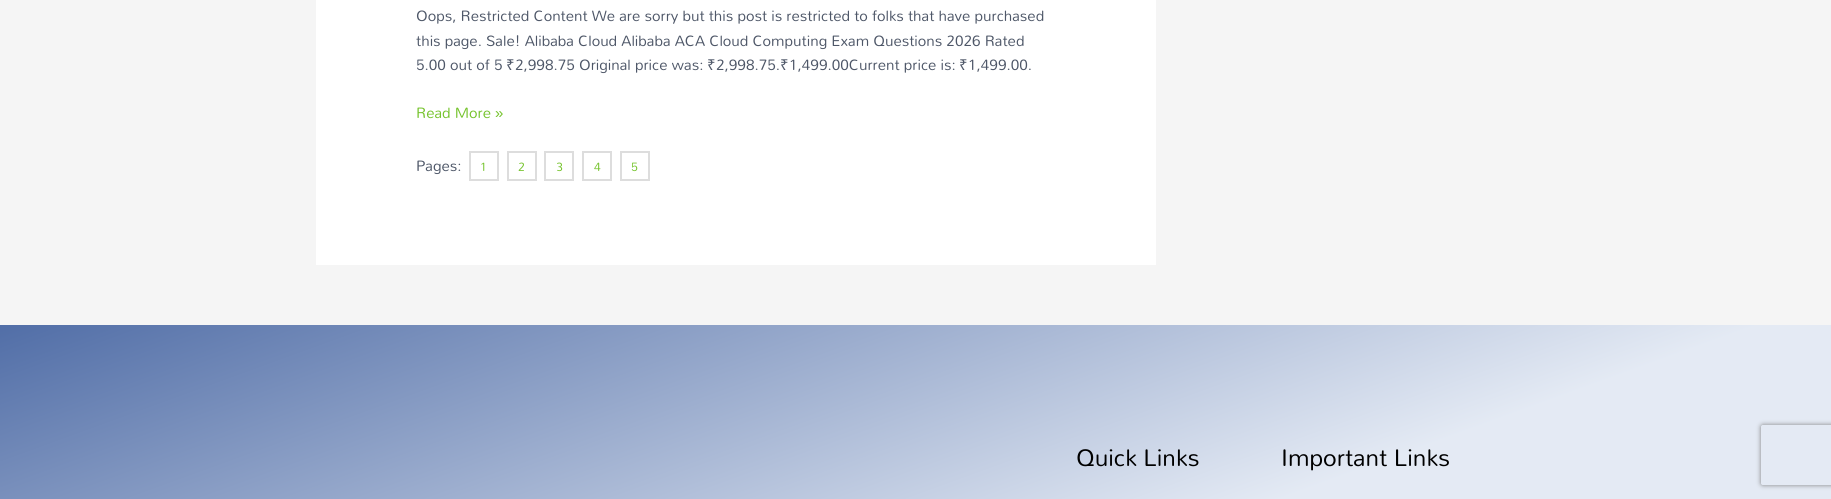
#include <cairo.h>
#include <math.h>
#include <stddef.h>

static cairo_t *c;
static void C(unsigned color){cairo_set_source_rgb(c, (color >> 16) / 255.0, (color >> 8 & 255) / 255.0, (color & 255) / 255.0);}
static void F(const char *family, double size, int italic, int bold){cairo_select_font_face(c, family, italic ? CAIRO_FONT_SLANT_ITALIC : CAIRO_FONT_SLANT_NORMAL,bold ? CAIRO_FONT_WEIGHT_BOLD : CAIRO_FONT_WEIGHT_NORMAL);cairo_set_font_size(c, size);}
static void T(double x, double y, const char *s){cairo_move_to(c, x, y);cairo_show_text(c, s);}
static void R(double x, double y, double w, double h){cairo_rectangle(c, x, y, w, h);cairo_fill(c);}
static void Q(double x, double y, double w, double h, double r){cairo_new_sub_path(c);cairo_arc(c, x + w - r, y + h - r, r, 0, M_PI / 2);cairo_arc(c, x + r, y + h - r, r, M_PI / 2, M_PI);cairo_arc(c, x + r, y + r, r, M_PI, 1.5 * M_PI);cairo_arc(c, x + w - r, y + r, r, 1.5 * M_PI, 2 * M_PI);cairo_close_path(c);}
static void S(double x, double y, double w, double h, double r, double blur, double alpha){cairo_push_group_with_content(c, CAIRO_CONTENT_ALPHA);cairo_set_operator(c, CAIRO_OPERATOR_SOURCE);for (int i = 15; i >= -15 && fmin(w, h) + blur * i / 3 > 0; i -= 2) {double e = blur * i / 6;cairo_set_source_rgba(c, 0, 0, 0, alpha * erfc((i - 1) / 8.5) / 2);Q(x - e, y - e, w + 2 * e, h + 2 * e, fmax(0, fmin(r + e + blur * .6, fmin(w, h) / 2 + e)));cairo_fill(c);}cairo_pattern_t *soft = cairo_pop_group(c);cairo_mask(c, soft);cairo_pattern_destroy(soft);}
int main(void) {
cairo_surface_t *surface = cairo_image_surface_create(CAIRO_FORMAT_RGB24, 1831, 499);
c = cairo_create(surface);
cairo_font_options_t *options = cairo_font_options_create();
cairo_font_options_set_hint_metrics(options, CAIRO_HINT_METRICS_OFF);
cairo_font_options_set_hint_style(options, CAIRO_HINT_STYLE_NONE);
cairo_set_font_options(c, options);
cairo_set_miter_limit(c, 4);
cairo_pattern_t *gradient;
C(0xf5f5f5);
cairo_paint(c);
C(0xffffff);
R(316,0,840,265);
F("Mandali",15,0,0);
C(0x4e5768);
T(416,21,"Oops, Restricted Content We are sorry but this post is restricted to folks that have purchased");
T(416,46,"this page. Sale! Alibaba Cloud Alibaba ACA Cloud Computing Exam Questions 2026 Rated");
T(416,70,"5.00 out of 5");
F("Noto Sans",15,0,0);
T(506,70,"₹");
F("Mandali",15,0,0);
T(515,70,"2,998.75 Original price was:");
F("Noto Sans",15,0,0);
T(707,70,"₹");
F("Mandali",15,0,0);
T(716,70,"2,998.75.");
F("Noto Sans",15,0,0);
T(780,70,"₹");
F("Mandali",15,0,0);
T(789,70,"1,499.00Current price is:");
F("Noto Sans",15,0,0);
T(959,70,"₹");
F("Mandali",15,0,0);
T(968,70,"1,499.00.");
C(0x75c32c);
T(416,118,"Read More");
F("Liberation Sans",15,0,0);
T(495,118,"»");
F("Mandali",15,0,0);
C(0x4e5768);
T(416,171,"Pages:");
cairo_rectangle(c,470,152,28,28);
C(0xdddddd);
cairo_stroke(c);
F("Mandali",12,0,0);
C(0x75c32c);
T(480,171,"1");
cairo_rectangle(c,508,152,28,28);
C(0xdddddd);
cairo_stroke(c);
C(0x75c32c);
T(518,171,"2");
cairo_rectangle(c,545,152,28,28);
C(0xdddddd);
cairo_stroke(c);
C(0x75c32c);
T(556,171,"3");
cairo_rectangle(c,583,152,28,28);
C(0xdddddd);
cairo_stroke(c);
C(0x75c32c);
T(594,171,"4");
cairo_rectangle(c,621,152,28,28);
C(0xdddddd);
cairo_stroke(c);
C(0x75c32c);
T(631,171,"5");
gradient = cairo_pattern_create_linear(1093,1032,738,56);
cairo_pattern_add_color_stop_rgba(gradient,.42,0.894,0.918,0.957,1);
cairo_pattern_add_color_stop_rgba(gradient,1,0.318,0.431,0.655,1);
cairo_set_source(c,gradient);
cairo_pattern_destroy(gradient);
R(0,325,1831,174);
F("Mandali",24,0,0);
C(0x000000);
T(1076,466,"Quick Links");
T(1281,466,"Important Links");
cairo_save(c);
cairo_set_fill_rule(c,CAIRO_FILL_RULE_EVEN_ODD);
cairo_new_path(c);
cairo_move_to(c,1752,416);
cairo_line_to(c,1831,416);
cairo_line_to(c,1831,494);
cairo_line_to(c,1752,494);
cairo_close_path(c);
cairo_move_to(c,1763,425);
cairo_line_to(c,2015,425);
cairo_curve_to(c,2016,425,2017,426,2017,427);
cairo_line_to(c,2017,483);
cairo_curve_to(c,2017,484,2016,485,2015,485);
cairo_line_to(c,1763,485);
cairo_curve_to(c,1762,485,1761,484,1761,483);
cairo_line_to(c,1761,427);
cairo_curve_to(c,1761,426,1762,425,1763,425);
cairo_close_path(c);
cairo_clip(c);
C(0x808080);
S(1761,425,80,60,2,2.5,1);
cairo_restore(c);
cairo_surface_write_to_png(surface, "o.png");
cairo_font_options_destroy(options);
cairo_destroy(c);
cairo_surface_destroy(surface);
return 0;
}
